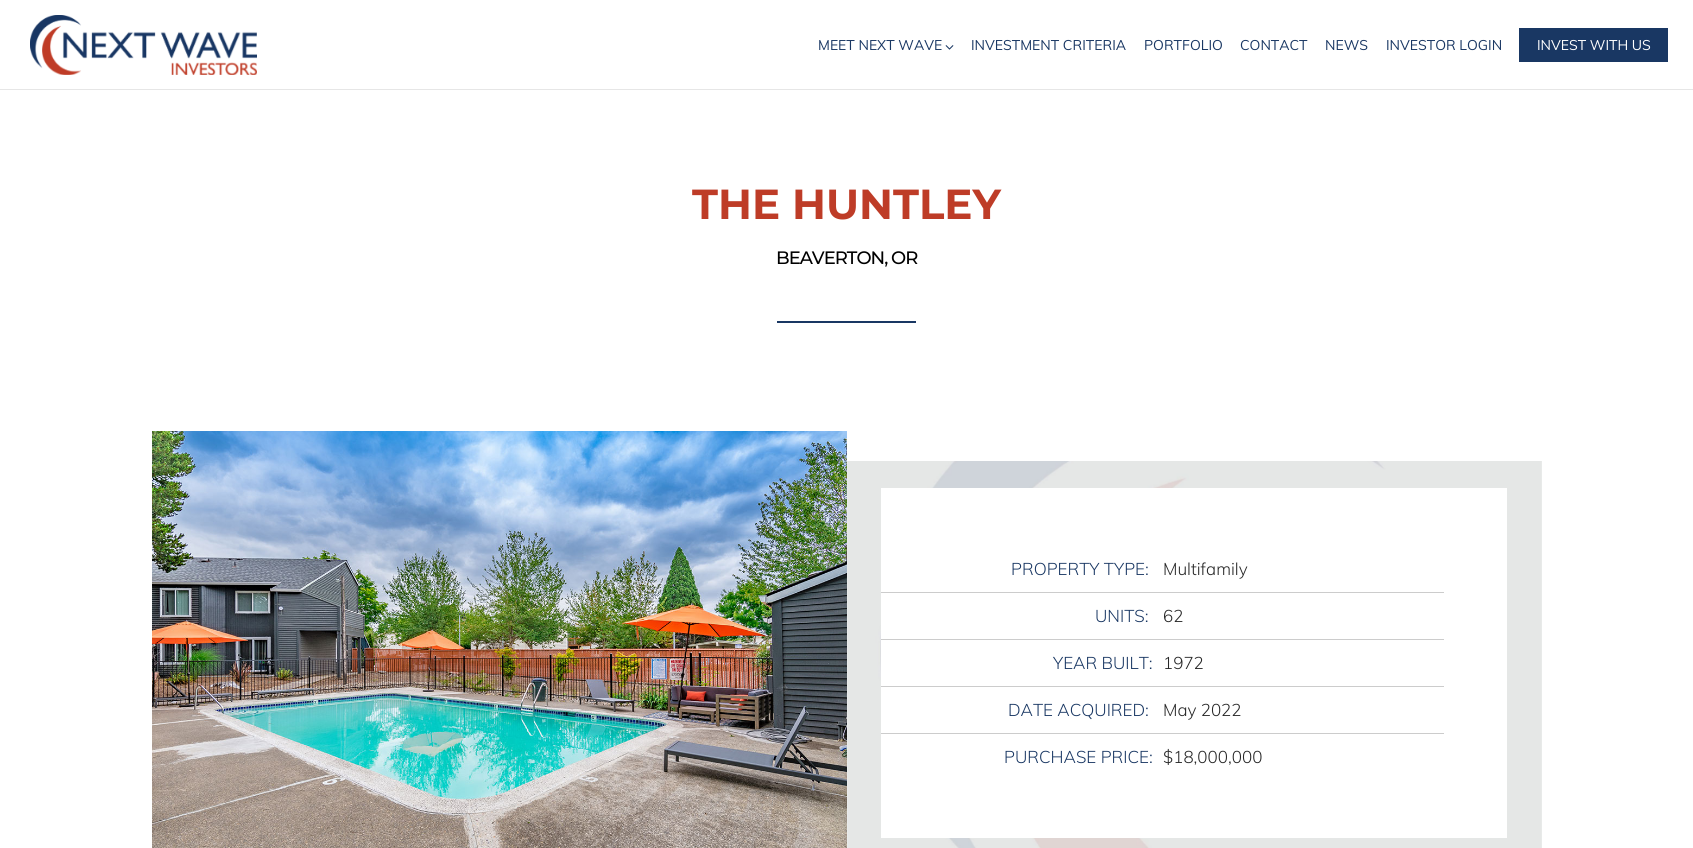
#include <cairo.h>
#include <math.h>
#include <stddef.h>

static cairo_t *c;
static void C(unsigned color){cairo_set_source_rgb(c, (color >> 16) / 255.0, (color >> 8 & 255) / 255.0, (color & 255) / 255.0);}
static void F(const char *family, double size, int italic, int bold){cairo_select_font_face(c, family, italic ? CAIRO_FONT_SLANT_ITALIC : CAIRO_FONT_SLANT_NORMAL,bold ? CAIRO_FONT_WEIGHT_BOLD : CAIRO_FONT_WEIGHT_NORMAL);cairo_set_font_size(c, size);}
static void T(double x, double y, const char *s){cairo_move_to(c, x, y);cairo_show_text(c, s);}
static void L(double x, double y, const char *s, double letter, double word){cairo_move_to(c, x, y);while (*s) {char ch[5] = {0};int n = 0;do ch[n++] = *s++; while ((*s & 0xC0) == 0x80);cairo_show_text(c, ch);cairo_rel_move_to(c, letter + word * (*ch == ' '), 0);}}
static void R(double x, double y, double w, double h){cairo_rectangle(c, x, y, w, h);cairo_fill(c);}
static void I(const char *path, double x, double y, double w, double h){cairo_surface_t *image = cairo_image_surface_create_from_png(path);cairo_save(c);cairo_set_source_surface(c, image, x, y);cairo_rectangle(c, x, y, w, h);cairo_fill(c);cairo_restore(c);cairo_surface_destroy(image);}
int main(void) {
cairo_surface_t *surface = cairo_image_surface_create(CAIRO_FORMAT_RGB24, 1693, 848);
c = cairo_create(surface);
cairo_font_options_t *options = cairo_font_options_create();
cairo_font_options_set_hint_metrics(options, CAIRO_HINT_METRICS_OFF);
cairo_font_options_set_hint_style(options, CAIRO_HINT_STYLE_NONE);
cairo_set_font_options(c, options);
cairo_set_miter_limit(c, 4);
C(0xffffff);
cairo_paint(c);
C(0xe6e6e6);
R(0,89,1693,1);
I("1.png",30,15,227,60);
F("Muli",14,0,0);
C(0x193763);
T(818,50,"MEET NEXT WAVE");
I("2.png",945,45,9,5);
T(971,50,"INVESTMENT CRITERIA");
T(1144,50,"PORTFOLIO");
T(1240,50,"CONTACT");
T(1325,50,"NEWS");
T(1386,50,"INVESTOR LOGIN");
R(1519,28,149,34);
C(0xffffff);
T(1537,50,"INVEST WITH US");
F("Montserrat",42,0,1);
C(0xbe3c27);
T(692,219,"THE HUNTLEY");
F("Montserrat Medium",18,0,0);
C(0x000000);
L(776,264,"BEAVERTON, OR",-1,0);
C(0x193763);
R(777,321,139,2);
I("3.png",152,431,695,417);
I("4.png",847,461,695,387);
C(0xffffff);
R(881,488,626,350);
C(0xcccccc);
R(881,592,563,1);
F("Muli Light",17,0,0);
C(0x193763);
T(1011,575,"PROPERTY TYPE:");
C(0x272727);
T(1163,575,"Multifamily");
C(0xcccccc);
R(881,639,563,1);
C(0x193763);
T(1095,622,"UNITS:");
C(0x272727);
T(1163,622,"62");
C(0xcccccc);
R(881,686,563,1);
C(0x193763);
T(1053,669,"YEAR BUILT:");
C(0x272727);
T(1163,669,"1972");
C(0xcccccc);
R(881,733,563,1);
C(0x193763);
T(1008,716,"DATE ACQUIRED:");
C(0x272727);
T(1163,716,"May 2022");
C(0x193763);
T(1004,763,"PURCHASE PRICE:");
C(0x272727);
T(1163,763,"$18,000,000");
cairo_surface_write_to_png(surface, "o.png");
cairo_font_options_destroy(options);
cairo_destroy(c);
cairo_surface_destroy(surface);
return 0;
}
